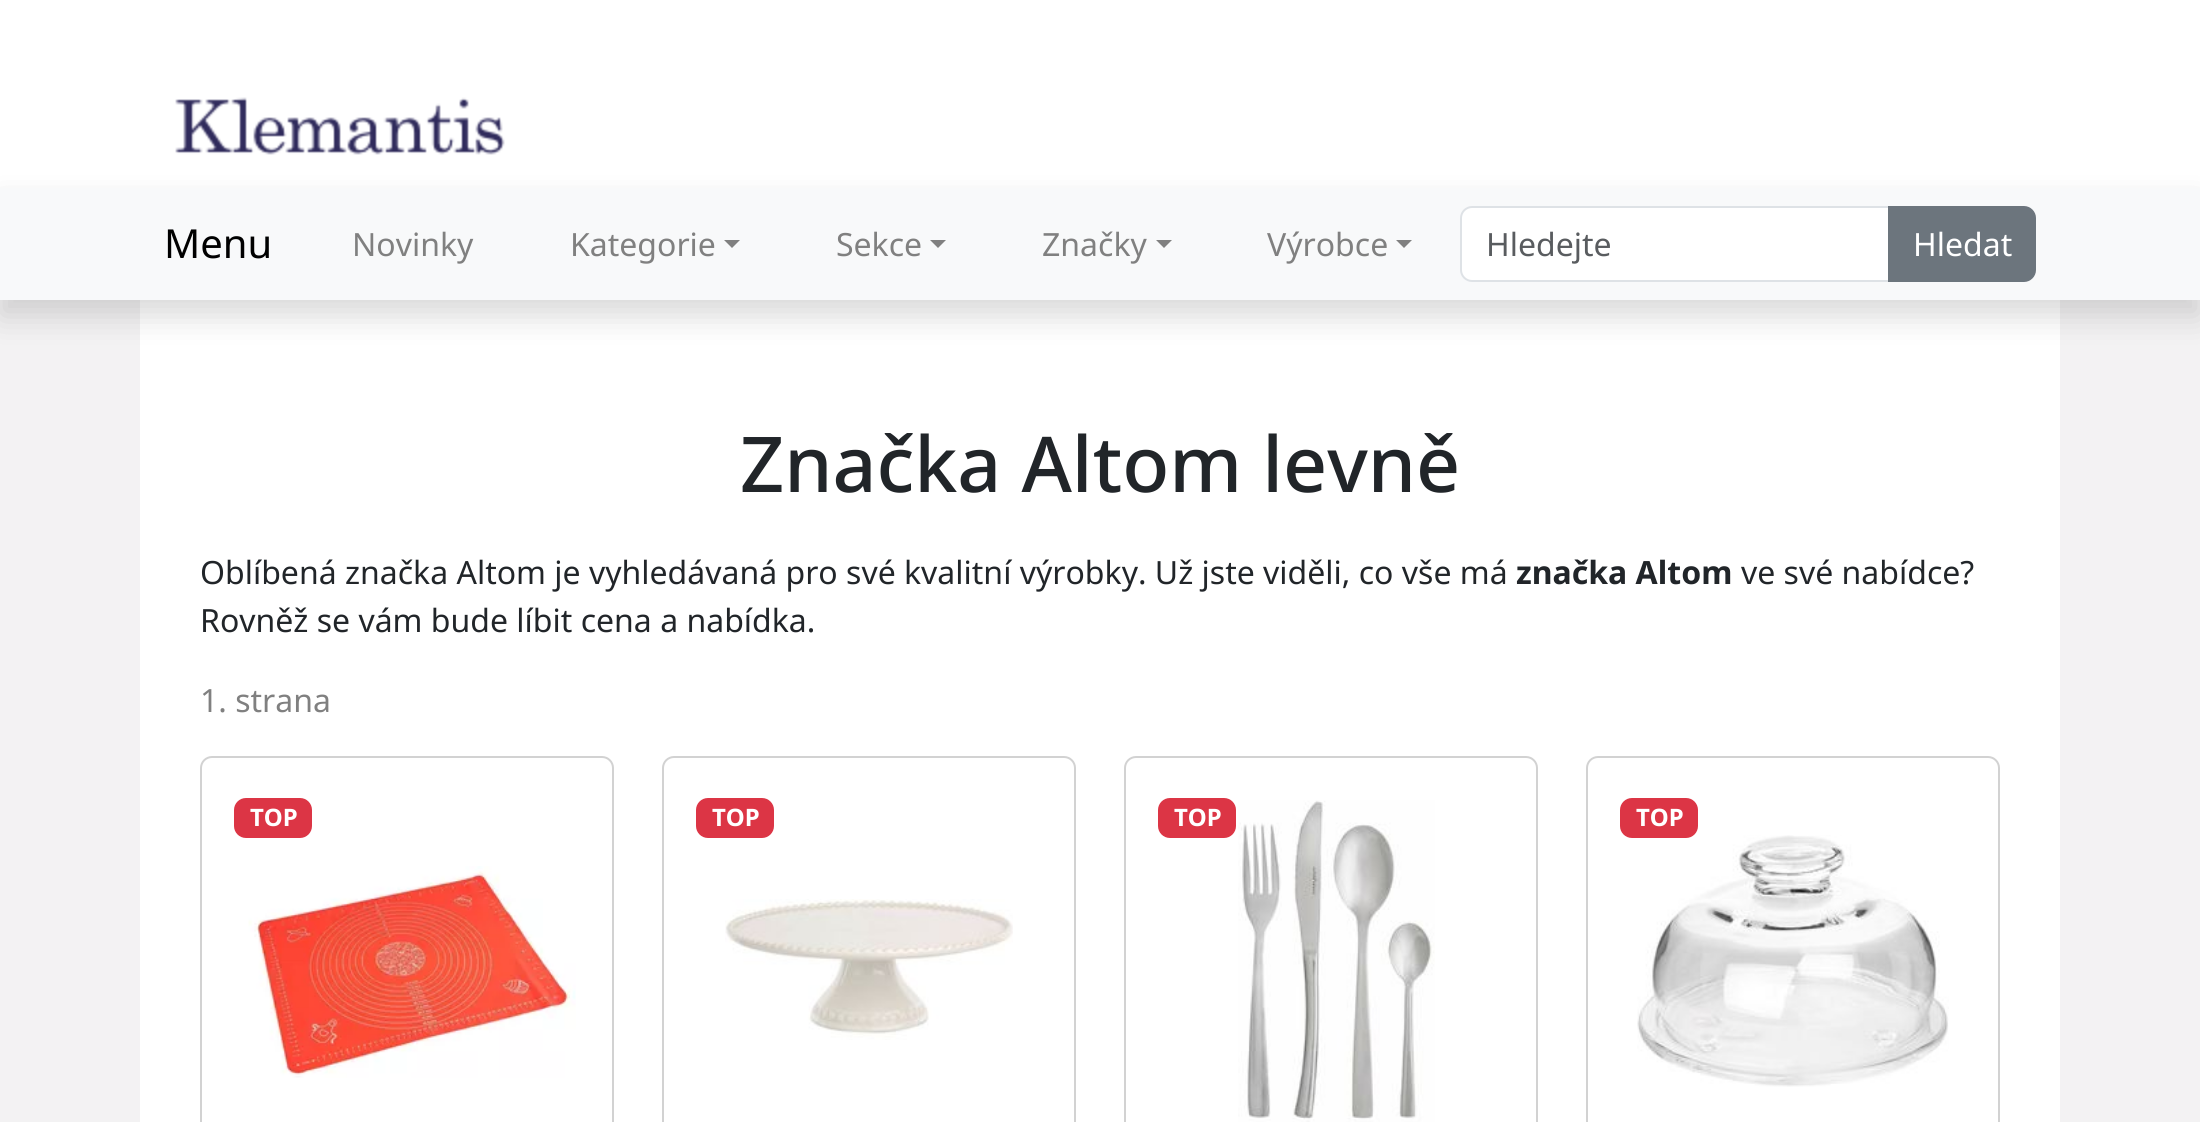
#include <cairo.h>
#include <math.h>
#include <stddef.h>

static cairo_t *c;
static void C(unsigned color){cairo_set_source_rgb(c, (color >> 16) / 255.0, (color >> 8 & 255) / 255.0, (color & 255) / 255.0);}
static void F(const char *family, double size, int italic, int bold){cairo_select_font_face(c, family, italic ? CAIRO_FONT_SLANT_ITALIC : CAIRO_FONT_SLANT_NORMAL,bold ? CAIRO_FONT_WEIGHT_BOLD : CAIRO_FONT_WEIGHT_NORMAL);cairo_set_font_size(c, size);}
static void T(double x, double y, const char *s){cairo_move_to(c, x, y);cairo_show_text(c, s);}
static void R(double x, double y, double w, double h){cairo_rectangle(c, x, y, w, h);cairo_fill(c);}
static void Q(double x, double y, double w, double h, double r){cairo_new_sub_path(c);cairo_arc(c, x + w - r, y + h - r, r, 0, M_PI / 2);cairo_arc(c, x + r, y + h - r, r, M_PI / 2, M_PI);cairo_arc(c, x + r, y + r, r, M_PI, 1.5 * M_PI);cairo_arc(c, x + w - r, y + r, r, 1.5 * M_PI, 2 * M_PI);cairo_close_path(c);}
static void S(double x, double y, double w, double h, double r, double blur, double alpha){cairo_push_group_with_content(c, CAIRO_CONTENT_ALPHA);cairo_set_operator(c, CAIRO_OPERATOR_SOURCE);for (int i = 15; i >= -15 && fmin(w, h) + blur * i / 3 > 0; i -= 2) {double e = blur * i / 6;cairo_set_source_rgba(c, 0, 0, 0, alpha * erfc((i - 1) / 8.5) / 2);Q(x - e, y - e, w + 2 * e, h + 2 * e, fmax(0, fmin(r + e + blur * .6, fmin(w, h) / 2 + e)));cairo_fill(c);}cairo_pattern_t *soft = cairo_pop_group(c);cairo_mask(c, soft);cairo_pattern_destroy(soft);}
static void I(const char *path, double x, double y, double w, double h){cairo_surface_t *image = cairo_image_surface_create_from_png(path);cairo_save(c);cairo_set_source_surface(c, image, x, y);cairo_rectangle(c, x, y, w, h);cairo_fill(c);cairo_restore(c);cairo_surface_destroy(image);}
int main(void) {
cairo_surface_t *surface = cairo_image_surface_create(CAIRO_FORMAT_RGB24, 2200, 1122);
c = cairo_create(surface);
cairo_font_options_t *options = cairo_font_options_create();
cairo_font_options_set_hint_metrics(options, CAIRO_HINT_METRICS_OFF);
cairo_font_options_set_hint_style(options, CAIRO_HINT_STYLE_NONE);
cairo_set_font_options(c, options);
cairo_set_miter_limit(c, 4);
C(0xf3f2f3);
cairo_paint(c);
C(0xffffff);
R(0,0,2200,188);
I("1.png",175,97,330,58);
R(140,300,1920,822);
C(0x000000);
S(0,204,2200,112,0,16,.15);
C(0xf8f9fa);
R(0,188,2200,112);
F("Noto Sans",40,0,0);
C(0x000000);
T(164,258,"Menu");
F("Noto Sans",32,0,0);
C(0x808080);
T(352,256,"Novinky");
T(570,256,"Kategorie");
cairo_new_path(c);
cairo_move_to(c,724,240);
cairo_line_to(c,740,240);
cairo_line_to(c,732,248);
cairo_close_path(c);
cairo_fill(c);
T(836,256,"Sekce");
cairo_new_path(c);
cairo_move_to(c,930,240);
cairo_line_to(c,946,240);
cairo_line_to(c,938,248);
cairo_close_path(c);
cairo_fill(c);
T(1042,256,"Značky");
cairo_new_path(c);
cairo_move_to(c,1156,240);
cairo_line_to(c,1172,240);
cairo_line_to(c,1164,248);
cairo_close_path(c);
cairo_fill(c);
T(1267,256,"Výrobce");
cairo_new_path(c);
cairo_move_to(c,1396,240);
cairo_line_to(c,1412,240);
cairo_line_to(c,1404,248);
cairo_close_path(c);
cairo_fill(c);
C(0xffffff);
cairo_new_path(c);
cairo_move_to(c,1472,207);
cairo_line_to(c,1889,207);
cairo_line_to(c,1889,281);
cairo_line_to(c,1472,281);
cairo_curve_to(c,1466,281,1461,276,1461,270);
cairo_line_to(c,1461,218);
cairo_curve_to(c,1461,212,1466,207,1472,207);
cairo_close_path(c);
cairo_fill_preserve(c);
C(0xdee2e6);
cairo_stroke(c);
C(0x595c5f);
T(1486,256,"Hledejte");
C(0x6c757d);
cairo_new_path(c);
cairo_move_to(c,1888,206);
cairo_line_to(c,2024,206);
cairo_curve_to(c,2030.5,206,2036,211.5,2036,218);
cairo_line_to(c,2036,270);
cairo_curve_to(c,2036,276.5,2030.5,282,2024,282);
cairo_line_to(c,1888,282);
cairo_close_path(c);
cairo_fill(c);
C(0xffffff);
T(1913,256,"Hledat");
F("Noto Sans Medium",77,0,0);
C(0x212529);
T(740,492,"Značka Altom levně");
F("Noto Sans",32,0,0);
T(200,584,"Oblíbená značka Altom je vyhledávaná pro své kvalitní výrobky. Už jste viděli, co vše má");
F("Noto Sans",32,0,1);
T(1516,584,"značka Altom");
F("Noto Sans",32,0,0);
T(1741,584,"ve své nabídce?");
T(200,632,"Rovněž se vám bude líbit cena a nabídka.");
C(0x808080);
T(200,712,"1. strana");
Q(201,757,412,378,11);
C(0xd2d2d2);
cairo_stroke(c);
C(0xdc3545);
Q(234,798,78,40,12);
cairo_fill(c);
F("Noto Sans",24,0,1);
C(0xffffff);
T(250,826,"TOP");
I("2.png",248,866,328,212);
Q(663,757,412,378,11);
C(0xd2d2d2);
cairo_stroke(c);
C(0xdc3545);
Q(696,798,78,40,12);
cairo_fill(c);
C(0xffffff);
T(712,826,"TOP");
I("3.png",725,899,288,141);
Q(1125,757,412,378,11);
C(0xd2d2d2);
cairo_stroke(c);
C(0xdc3545);
Q(1158,798,78,40,12);
cairo_fill(c);
C(0xffffff);
T(1174,826,"TOP");
I("4.png",1238,800,197,322);
Q(1587,757,412,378,11);
C(0xd2d2d2);
cairo_stroke(c);
I("5.png",1637,835,312,252);
C(0xdc3545);
Q(1620,798,78,40,12);
cairo_fill(c);
C(0xffffff);
T(1636,826,"TOP");
cairo_surface_write_to_png(surface, "o.png");
cairo_font_options_destroy(options);
cairo_destroy(c);
cairo_surface_destroy(surface);
return 0;
}
